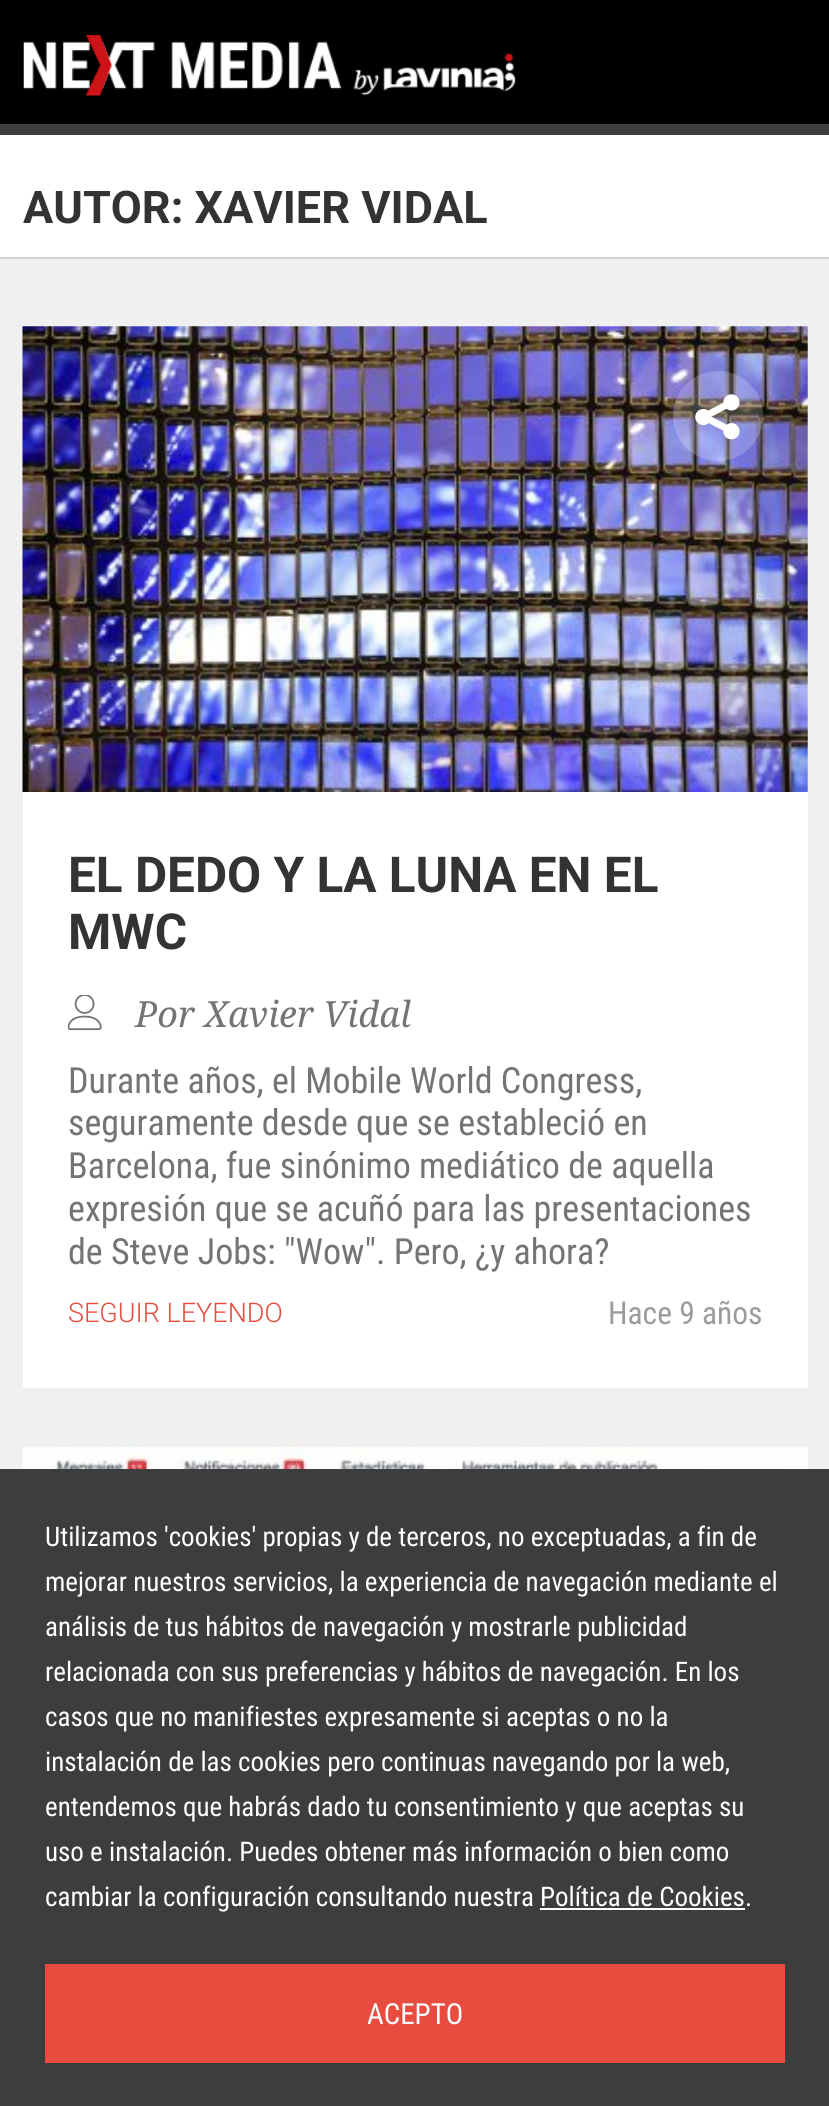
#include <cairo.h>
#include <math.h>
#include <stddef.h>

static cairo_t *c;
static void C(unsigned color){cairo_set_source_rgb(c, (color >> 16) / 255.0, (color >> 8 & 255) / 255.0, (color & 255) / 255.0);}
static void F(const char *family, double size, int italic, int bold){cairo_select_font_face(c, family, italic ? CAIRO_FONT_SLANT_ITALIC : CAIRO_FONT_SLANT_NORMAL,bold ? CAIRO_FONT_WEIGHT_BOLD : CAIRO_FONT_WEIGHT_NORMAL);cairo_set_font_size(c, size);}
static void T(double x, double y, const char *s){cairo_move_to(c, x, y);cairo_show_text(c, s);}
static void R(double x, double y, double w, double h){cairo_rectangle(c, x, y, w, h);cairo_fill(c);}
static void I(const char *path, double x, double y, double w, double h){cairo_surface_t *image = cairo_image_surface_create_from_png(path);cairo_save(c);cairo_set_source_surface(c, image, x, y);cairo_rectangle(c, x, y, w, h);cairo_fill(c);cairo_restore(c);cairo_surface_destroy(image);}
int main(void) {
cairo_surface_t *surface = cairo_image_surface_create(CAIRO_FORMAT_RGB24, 829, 2106);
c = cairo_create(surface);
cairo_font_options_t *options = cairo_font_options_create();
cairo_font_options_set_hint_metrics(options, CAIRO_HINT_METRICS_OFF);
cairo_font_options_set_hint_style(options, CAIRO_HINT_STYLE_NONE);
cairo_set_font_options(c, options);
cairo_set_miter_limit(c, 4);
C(0xf0f0f0);
cairo_paint(c);
C(0x000000);
R(0,0,829,124);
C(0x3d3d3d);
R(0,124,829,11);
I("1.png",23,34,493,62);
C(0xffffff);
R(0,135,829,122);
C(0xd2d2d2);
R(0,257,829,2);
F("Roboto",45,0,1);
C(0x333333);
T(23,223,"AUTOR: XAVIER VIDAL");
C(0xffffff);
R(23,326,785,1062);
I("2.png",22,326,786,466);
cairo_set_source_rgba(c,1,1,1,0.2);
cairo_arc(c,718,416,45,0,2 * M_PI);
cairo_fill(c);
I("3.png",695,394,45,46);
F("Roboto",49.5,0,1);
C(0x333333);
T(68,892,"EL DEDO Y LA LUNA EN EL");
T(68,949,"MWC");
I("4.png",68,995,34,36);
F("Droid Serif",36,1,0);
C(0x747474);
T(135,1027,"Por Xavier Vidal");
F("Roboto Condensed",36,0,0);
T(68,1093,"Durante años, el Mobile World Congress,");
T(68,1135,"seguramente desde que se estableció en");
T(68,1178,"Barcelona, fue sinónimo mediático de aquella");
T(68,1221,"expresión que se acuñó para las presentaciones");
T(68,1264,"de Steve Jobs: \"Wow\". Pero, ¿y ahora?");
F("Roboto Light",27,0,0);
C(0xe74c3e);
T(68,1322,"SEGUIR LEYENDO");
F("Roboto Condensed",31.5,0,0);
C(0x9c9c9c);
T(608,1324,"Hace 9 años");
I("5.png",22,1444,786,25);
C(0x3d3d3d);
R(0,1469,829,637);
F("Roboto Condensed",27,0,0);
C(0xffffff);
T(45,1546,"Utilizamos 'cookies' propias y de terceros, no exceptuadas, a fin de");
T(45,1591,"mejorar nuestros servicios, la experiencia de navegación mediante el");
T(45,1636,"análisis de tus hábitos de navegación y mostrarle publicidad");
T(45,1681,"relacionada con sus preferencias y hábitos de navegación. En los");
T(45,1726,"casos que no manifiestes expresamente si aceptas o no la");
T(45,1771,"instalación de las cookies pero continuas navegando por la web,");
T(45,1816,"entendemos que habrás dado tu consentimiento y que aceptas su");
T(45,1861,"uso e instalación. Puedes obtener más información o bien como");
T(45,1906,"cambiar la configuración consultando nuestra Política de Cookies.");
R(540,1908,205,2);
C(0xe74c3e);
R(45,1964,740,99);
F("Roboto Condensed",29,0,0);
C(0xffffff);
T(367,2024,"ACEPTO");
cairo_surface_write_to_png(surface, "o.png");
cairo_font_options_destroy(options);
cairo_destroy(c);
cairo_surface_destroy(surface);
return 0;
}
